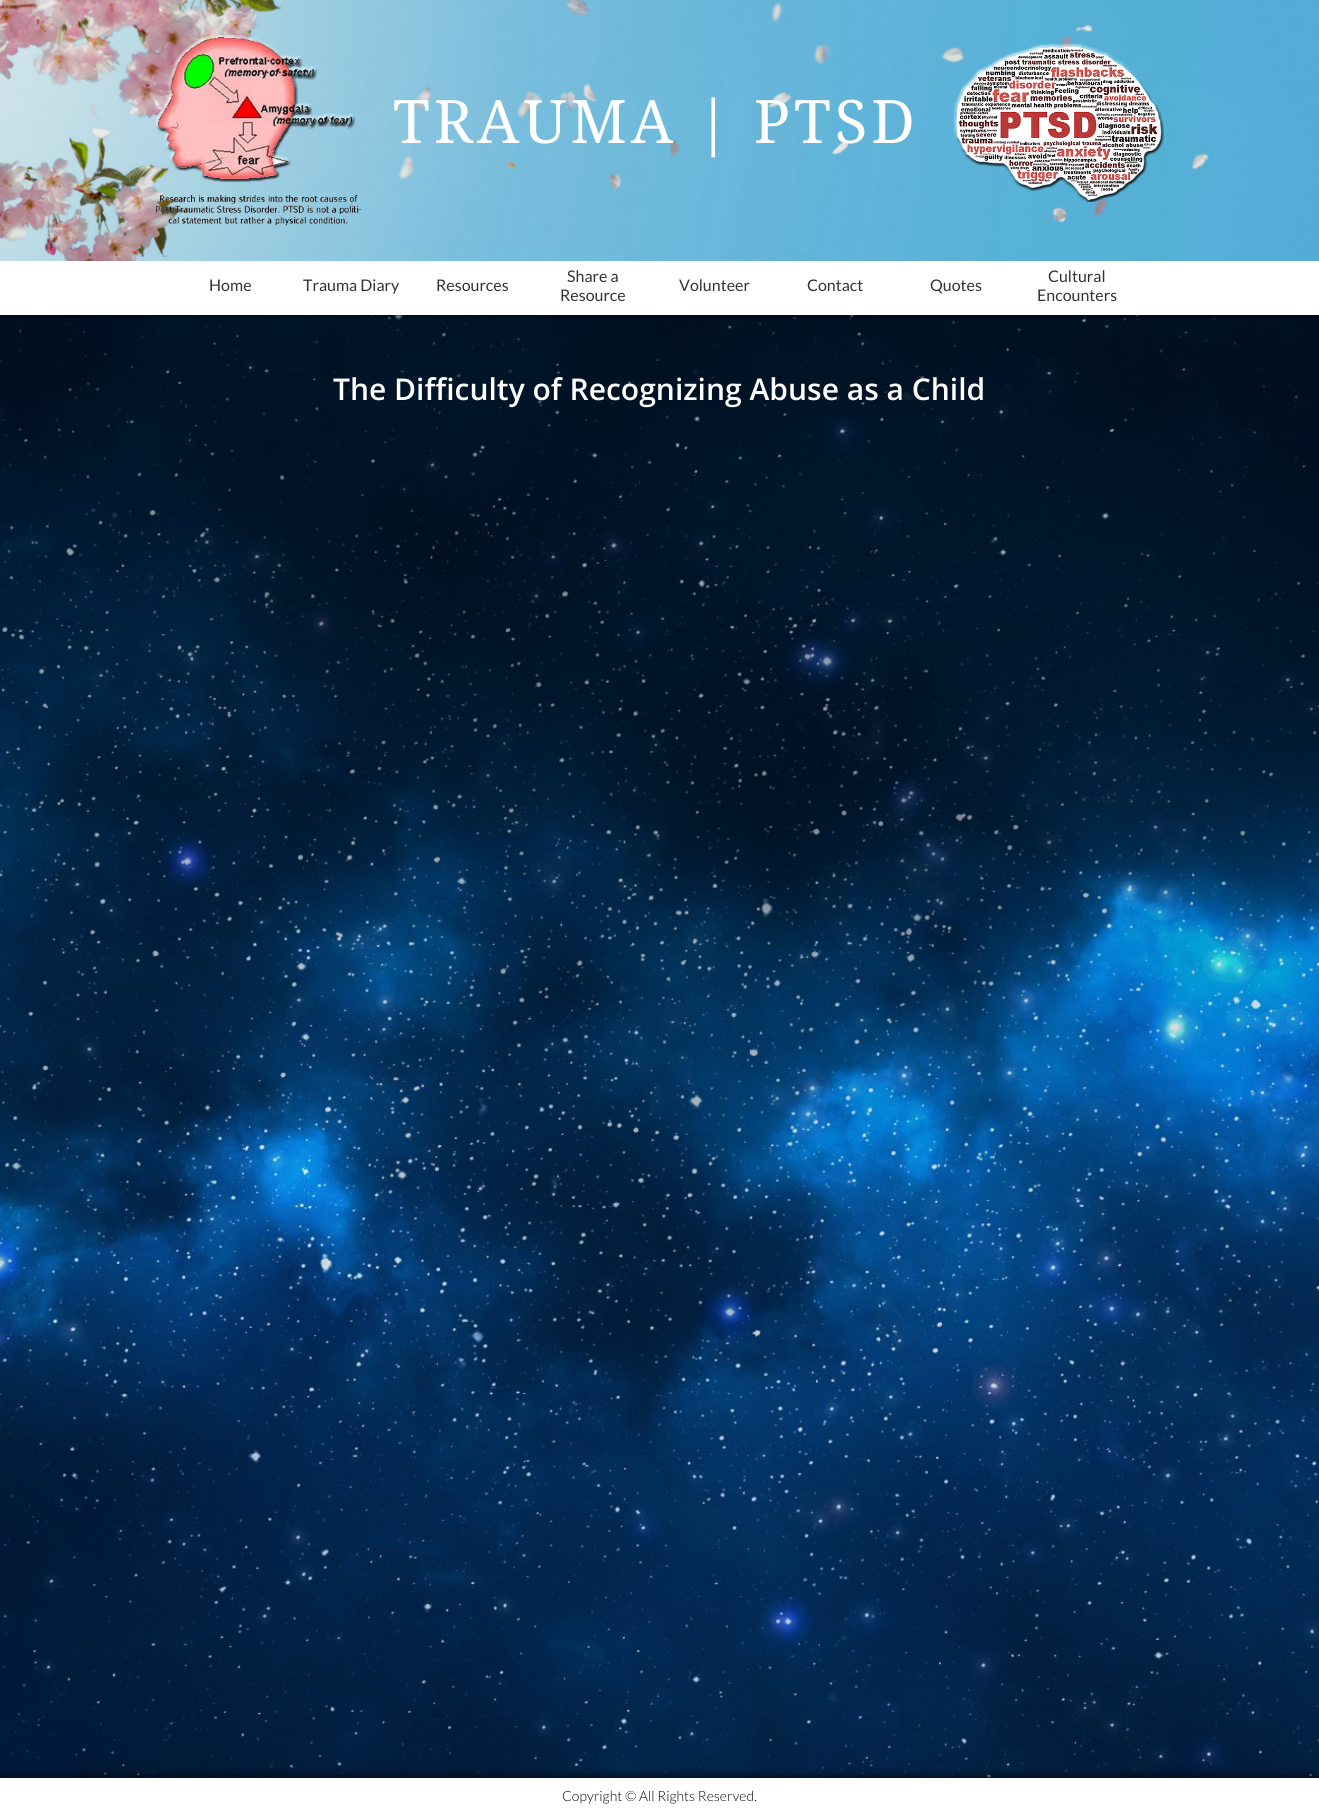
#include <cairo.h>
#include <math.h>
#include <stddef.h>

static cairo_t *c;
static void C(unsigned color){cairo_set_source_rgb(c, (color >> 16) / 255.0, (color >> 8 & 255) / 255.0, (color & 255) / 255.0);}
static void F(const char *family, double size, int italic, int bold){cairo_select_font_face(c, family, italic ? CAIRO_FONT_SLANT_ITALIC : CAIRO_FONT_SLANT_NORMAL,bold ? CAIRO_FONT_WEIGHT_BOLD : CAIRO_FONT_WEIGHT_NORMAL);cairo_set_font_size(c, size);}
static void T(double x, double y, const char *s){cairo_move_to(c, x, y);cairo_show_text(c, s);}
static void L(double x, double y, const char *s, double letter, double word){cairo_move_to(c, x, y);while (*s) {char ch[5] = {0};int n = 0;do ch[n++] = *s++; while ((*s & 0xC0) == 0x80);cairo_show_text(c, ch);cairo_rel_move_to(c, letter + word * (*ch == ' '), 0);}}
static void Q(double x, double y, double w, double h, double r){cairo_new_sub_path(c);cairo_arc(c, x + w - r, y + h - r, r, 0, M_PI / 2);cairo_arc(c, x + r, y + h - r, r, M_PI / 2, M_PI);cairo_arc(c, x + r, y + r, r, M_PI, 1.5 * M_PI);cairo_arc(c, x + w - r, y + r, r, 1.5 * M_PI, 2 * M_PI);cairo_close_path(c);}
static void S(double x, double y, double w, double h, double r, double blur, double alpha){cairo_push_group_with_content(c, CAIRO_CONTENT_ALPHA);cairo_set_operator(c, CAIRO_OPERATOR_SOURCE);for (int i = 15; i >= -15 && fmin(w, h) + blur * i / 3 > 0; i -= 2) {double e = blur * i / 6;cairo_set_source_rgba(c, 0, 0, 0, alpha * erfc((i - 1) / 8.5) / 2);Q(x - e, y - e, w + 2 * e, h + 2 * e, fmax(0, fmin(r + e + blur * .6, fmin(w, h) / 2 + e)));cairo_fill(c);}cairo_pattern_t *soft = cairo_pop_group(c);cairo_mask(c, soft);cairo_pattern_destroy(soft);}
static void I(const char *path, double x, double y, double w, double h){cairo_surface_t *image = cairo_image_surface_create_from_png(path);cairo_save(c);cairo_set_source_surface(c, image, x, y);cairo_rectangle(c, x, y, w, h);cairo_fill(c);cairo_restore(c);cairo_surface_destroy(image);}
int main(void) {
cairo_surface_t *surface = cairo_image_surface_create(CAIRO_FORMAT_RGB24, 1319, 1815);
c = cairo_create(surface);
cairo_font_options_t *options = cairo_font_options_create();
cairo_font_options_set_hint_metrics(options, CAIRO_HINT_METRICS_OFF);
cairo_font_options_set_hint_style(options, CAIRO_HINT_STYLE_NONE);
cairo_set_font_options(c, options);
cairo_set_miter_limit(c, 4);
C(0xffffff);
cairo_paint(c);
I("4.png",0,315,1319,1463);
cairo_save(c);
cairo_rectangle(c,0,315,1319,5);
cairo_clip(c);
C(0x000000);
S(0,0,1319,315,0,2.5,1);
cairo_restore(c);
I("1.png",0,0,1319,261);
I("2.png",155,35,207,191);
F("Droid Serif",60,0,0);
C(0xffffff);
L(393,143,"TRAUMA | PTSD",4,0);
I("3.png",953,43,211,159);
F("Lato",16,0,0);
C(0x333333);
T(209,291,"Home");
T(303,291,"Trauma Diary");
T(436,291,"Resources");
T(567,282,"Share a");
T(560,301,"Resource");
T(679,291,"Volunteer");
T(807,291,"Contact");
T(930,291,"Quotes");
T(1048,282,"Cultural");
T(1037,301,"Encounters");
F("Open Sans SemiBold",30,0,0);
C(0xffffff);
T(333,400,"The Difficulty of Recognizing Abuse as a Child");
cairo_save(c);
cairo_rectangle(c,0,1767,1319,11);
cairo_clip(c);
C(0x000000);
S(0,1778,1319,37,0,5.5,1);
cairo_restore(c);
F("Lato Light",14,0,0);
C(0x050505);
T(562,1801,"Copyright © All Rights Reserved.");
cairo_surface_write_to_png(surface, "o.png");
cairo_font_options_destroy(options);
cairo_destroy(c);
cairo_surface_destroy(surface);
return 0;
}
